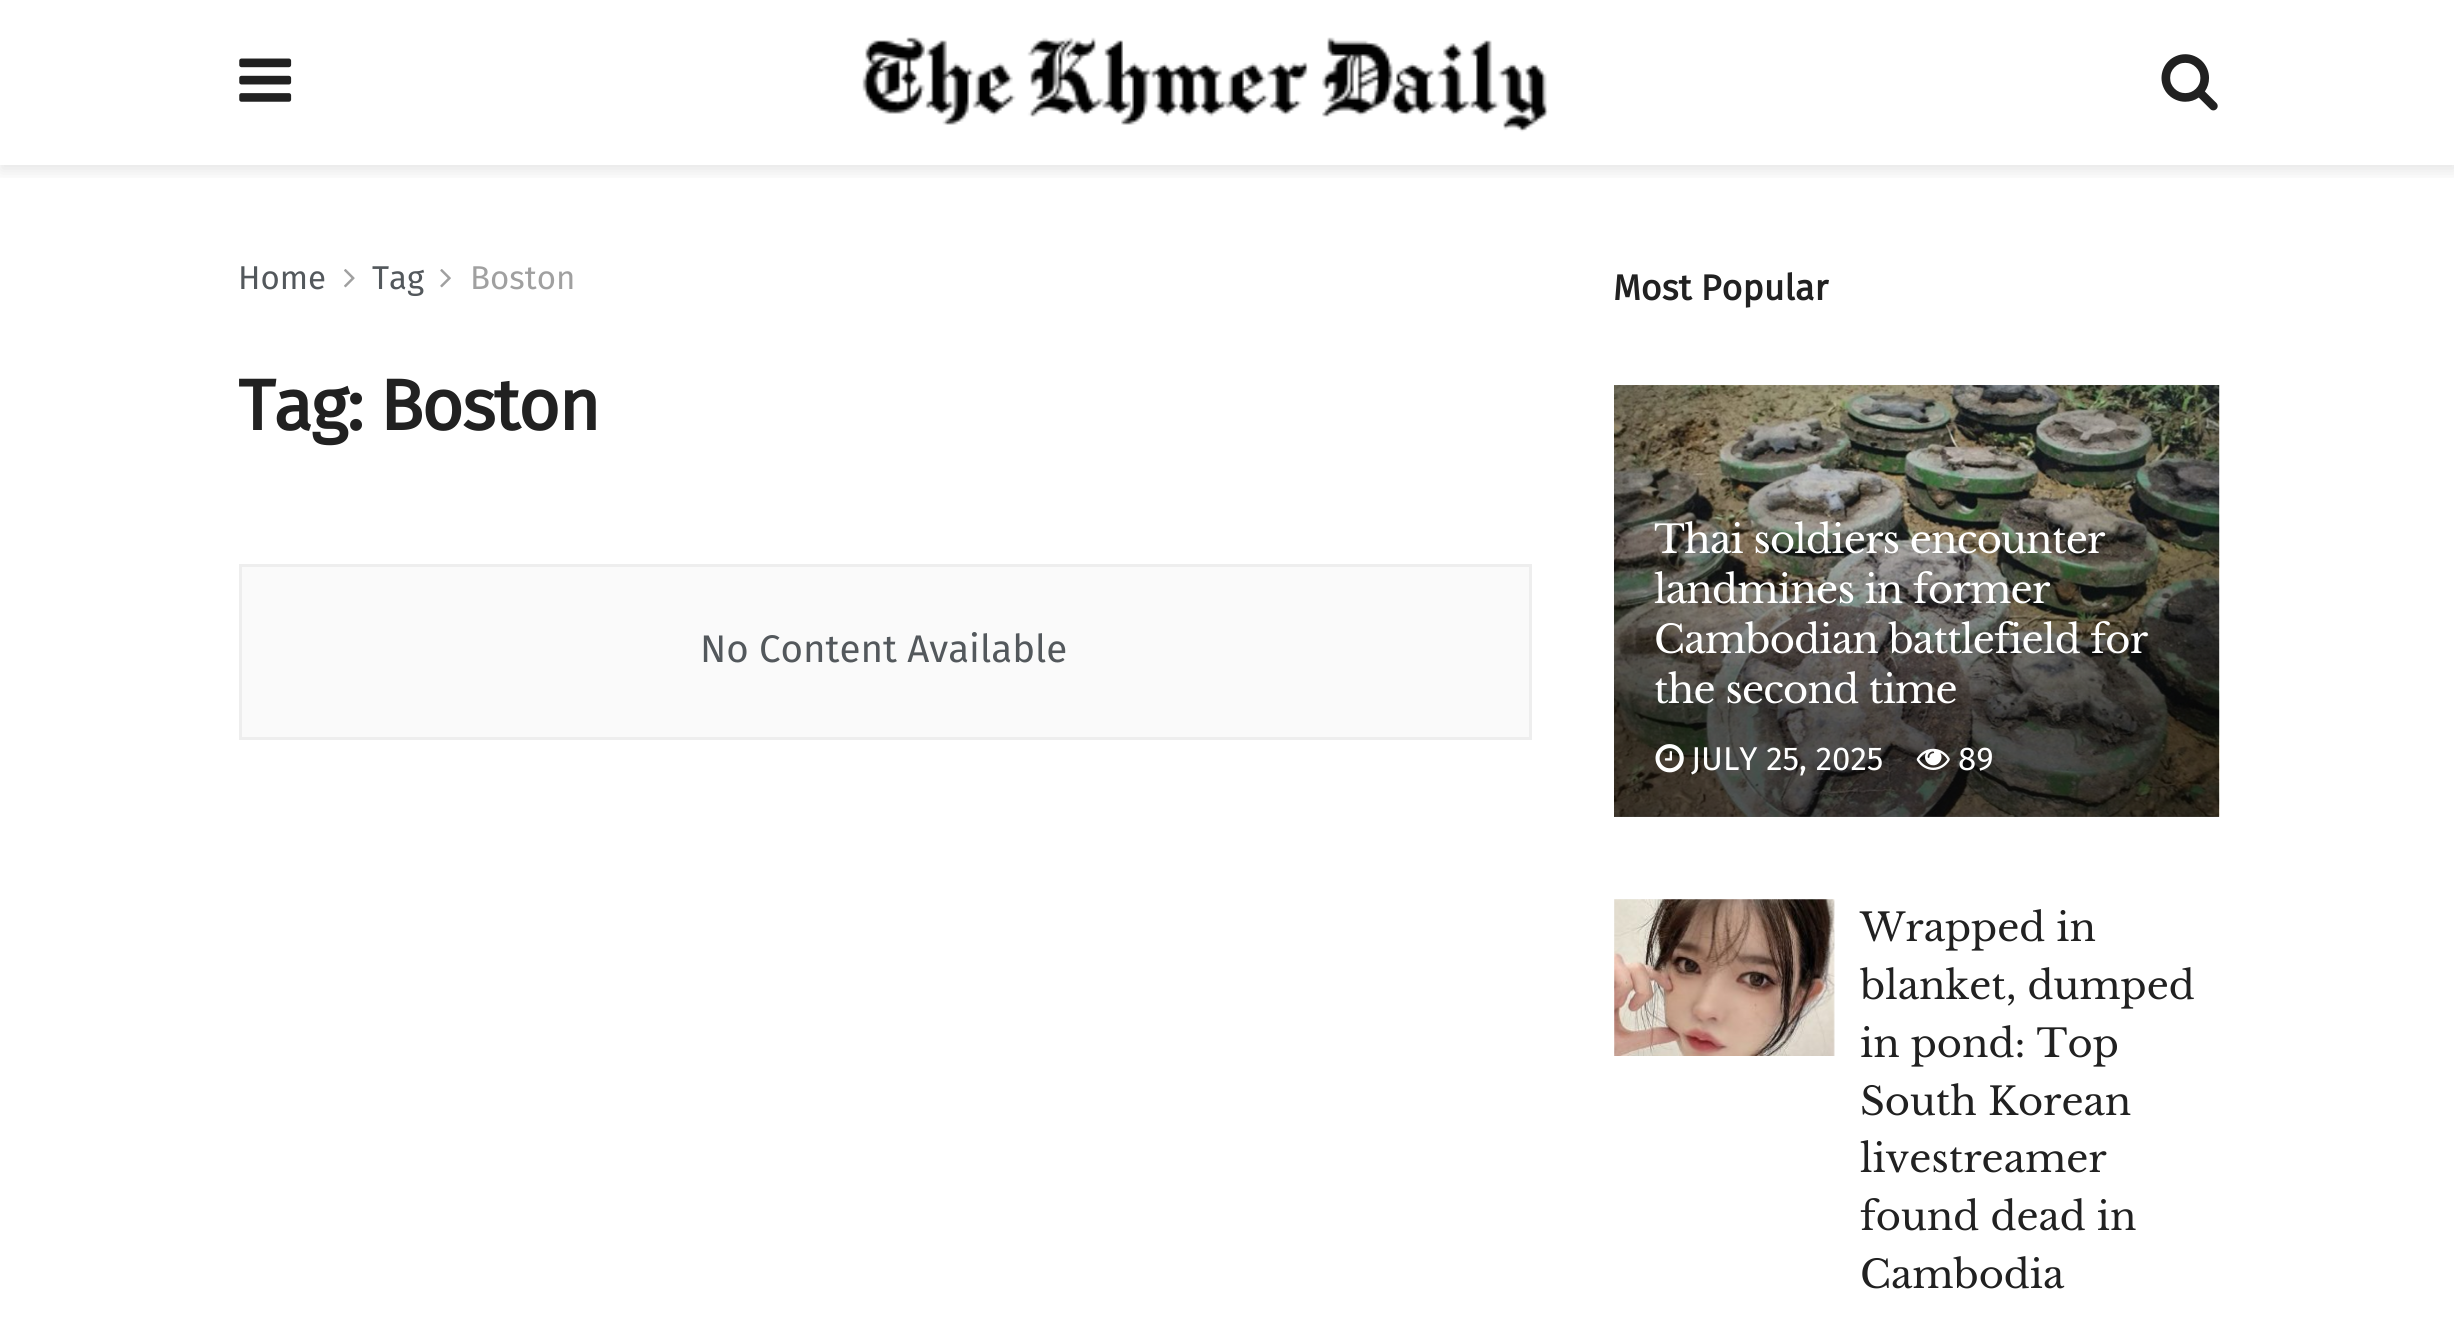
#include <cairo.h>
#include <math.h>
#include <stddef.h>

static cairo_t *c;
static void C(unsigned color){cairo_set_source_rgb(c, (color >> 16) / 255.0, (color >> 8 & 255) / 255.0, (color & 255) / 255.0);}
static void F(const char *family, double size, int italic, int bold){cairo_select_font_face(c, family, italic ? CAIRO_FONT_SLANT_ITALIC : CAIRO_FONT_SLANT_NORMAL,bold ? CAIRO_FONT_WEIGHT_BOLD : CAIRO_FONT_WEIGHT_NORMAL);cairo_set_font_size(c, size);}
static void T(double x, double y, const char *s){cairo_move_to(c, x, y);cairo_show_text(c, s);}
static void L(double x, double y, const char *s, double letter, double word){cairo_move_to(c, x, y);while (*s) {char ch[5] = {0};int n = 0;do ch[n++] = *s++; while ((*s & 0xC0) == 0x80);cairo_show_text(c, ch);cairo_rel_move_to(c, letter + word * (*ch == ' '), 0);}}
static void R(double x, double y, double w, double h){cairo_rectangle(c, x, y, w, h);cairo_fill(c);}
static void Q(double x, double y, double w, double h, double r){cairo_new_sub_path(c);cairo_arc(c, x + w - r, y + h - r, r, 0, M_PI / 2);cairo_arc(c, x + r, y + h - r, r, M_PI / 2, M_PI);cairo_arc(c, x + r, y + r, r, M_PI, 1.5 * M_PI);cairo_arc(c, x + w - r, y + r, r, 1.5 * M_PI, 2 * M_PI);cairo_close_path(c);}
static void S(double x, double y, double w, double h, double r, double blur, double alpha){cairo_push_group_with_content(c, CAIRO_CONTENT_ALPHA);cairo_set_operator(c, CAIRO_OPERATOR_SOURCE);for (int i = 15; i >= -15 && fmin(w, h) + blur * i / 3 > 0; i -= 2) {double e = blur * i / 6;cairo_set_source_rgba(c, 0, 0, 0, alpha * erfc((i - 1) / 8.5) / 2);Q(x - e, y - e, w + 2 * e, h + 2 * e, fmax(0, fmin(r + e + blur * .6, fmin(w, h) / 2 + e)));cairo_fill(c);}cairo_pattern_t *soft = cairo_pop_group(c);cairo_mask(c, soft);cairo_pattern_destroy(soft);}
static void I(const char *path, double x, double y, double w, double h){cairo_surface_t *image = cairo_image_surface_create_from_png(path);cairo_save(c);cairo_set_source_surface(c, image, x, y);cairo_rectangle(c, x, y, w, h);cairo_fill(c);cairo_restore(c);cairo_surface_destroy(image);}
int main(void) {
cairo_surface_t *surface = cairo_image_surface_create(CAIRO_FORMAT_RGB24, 2454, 1325);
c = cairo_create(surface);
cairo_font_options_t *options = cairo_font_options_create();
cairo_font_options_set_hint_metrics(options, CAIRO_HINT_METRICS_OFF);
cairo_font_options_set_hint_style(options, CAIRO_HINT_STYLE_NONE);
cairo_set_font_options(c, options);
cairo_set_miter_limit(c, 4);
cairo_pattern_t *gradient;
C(0xffffff);
cairo_paint(c);
cairo_save(c);
cairo_rectangle(c,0,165,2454,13);
cairo_clip(c);
C(0x000000);
S(0,6,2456,165,0,8,.1);
cairo_restore(c);
I("1.png",239,58,53,44);
I("2.png",862,37,687,95);
I("3.png",2161,54,57,57);
F("Fira Sans",33,0,0);
C(0x53585c);
T(238,289,"Home");
I("4.png",344,269,11,19);
T(372,289,"Tag");
I("5.png",440,269,11,19);
C(0xa0a0a0);
T(470,289,"Boston");
F("Fira Sans",71.5,0,1);
C(0x212121);
L(238,430,"Tag: Boston",-1.5,0);
C(0xfafafa);
cairo_rectangle(c,240.5,565.5,1290,173);
cairo_fill_preserve(c);
C(0xeeeeee);
cairo_set_line_width(c,3);
cairo_stroke(c);
F("Fira Sans",38.5,0,0);
C(0x53585c);
T(700,662,"No Content Available");
F("Fira Sans",35.75,0,1);
C(0x212121);
T(1613,300,"Most Popular");
I("6.png",1614,385,606,432);
gradient = cairo_pattern_create_linear(1917,459,1917,817);
cairo_pattern_add_color_stop_rgba(gradient,0,0,0,0,0);
cairo_pattern_add_color_stop_rgba(gradient,.7,0,0,0,.65);
cairo_set_source(c,gradient);
cairo_pattern_destroy(gradient);
R(1614,467,605,350);
F("Libre Baskerville",38.5,0,0);
C(0xffffff);
L(1654,553,"Thai soldiers encounter",-.75,0);
L(1654,603,"landmines in former",-.75,0);
L(1654,653,"Cambodian battlefield for",-.75,0);
L(1654,703,"the second time",-.75,0);
I("7.png",1655,744,29,29);
F("Fira Sans",33,0,0);
T(1691,770,"JULY 25, 2025");
I("8.png",1916,748,34,22);
T(1958,770,"89");
C(0xf7f7f7);
R(1614,899,220,157);
I("9.png",1614,899,221,157);
F("Libre Baskerville",38.5,0,0);
C(0x212121);
T(1860,941,"Wrapped in");
T(1860,999,"blanket, dumped");
T(1860,1057,"in pond: Top");
T(1860,1115,"South Korean");
T(1860,1172,"livestreamer");
T(1860,1230,"found dead in");
T(1860,1288,"Cambodia");
cairo_surface_write_to_png(surface, "o.png");
cairo_font_options_destroy(options);
cairo_destroy(c);
cairo_surface_destroy(surface);
return 0;
}
